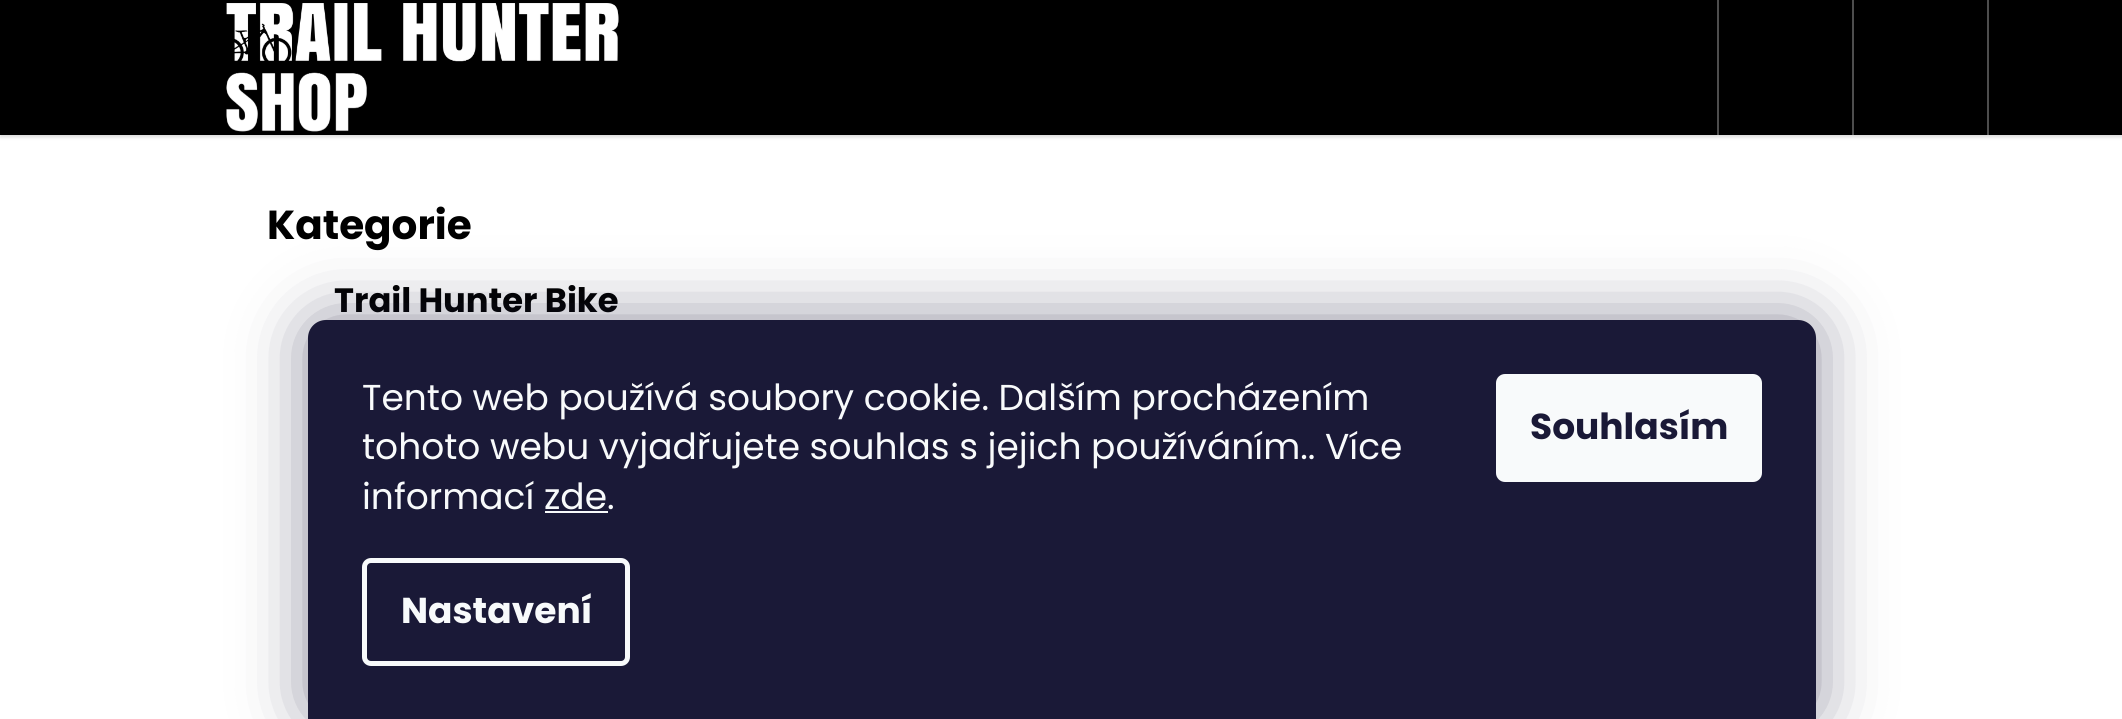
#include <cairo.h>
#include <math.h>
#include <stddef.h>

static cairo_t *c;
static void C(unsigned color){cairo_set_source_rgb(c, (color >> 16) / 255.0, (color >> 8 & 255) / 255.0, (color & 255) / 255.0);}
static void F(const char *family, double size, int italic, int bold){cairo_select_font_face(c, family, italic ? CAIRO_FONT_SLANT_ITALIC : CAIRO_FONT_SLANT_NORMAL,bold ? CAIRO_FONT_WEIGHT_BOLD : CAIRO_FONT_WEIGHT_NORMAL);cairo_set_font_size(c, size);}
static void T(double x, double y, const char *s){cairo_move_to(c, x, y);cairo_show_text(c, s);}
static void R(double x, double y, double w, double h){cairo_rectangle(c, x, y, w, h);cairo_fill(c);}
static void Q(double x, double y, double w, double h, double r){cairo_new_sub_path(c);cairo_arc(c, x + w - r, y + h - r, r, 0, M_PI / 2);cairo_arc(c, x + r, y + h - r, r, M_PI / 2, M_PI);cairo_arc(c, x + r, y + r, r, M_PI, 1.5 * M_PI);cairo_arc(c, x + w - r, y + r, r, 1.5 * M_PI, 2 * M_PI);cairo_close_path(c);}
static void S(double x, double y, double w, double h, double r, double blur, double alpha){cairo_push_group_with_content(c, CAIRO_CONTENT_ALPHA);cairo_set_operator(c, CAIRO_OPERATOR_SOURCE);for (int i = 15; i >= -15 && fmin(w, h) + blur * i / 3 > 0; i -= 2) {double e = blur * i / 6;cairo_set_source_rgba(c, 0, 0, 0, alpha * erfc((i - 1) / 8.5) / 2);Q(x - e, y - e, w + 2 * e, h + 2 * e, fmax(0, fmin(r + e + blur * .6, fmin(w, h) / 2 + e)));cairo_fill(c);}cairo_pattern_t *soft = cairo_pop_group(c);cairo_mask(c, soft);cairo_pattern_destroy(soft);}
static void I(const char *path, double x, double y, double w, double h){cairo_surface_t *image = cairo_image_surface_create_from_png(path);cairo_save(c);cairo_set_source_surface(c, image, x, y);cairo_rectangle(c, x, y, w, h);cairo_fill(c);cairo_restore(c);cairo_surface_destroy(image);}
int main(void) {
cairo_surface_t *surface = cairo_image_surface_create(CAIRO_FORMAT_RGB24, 2122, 719);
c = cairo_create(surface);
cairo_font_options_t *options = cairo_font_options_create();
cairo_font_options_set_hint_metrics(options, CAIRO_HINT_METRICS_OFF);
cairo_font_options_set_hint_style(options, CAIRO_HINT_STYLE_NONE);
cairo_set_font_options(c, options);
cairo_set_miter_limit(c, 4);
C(0xffffff);
cairo_paint(c);
C(0x000000);
S(0,2,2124,135,0,2,.16);
C(0x000000);
R(0,0,2122,135);
I("1.png",226,3,393,129);
C(0x4d4d4d);
R(1717,0,2,135);
R(1852,0,2,135);
R(1987,0,2,135);
F("Poppins",40.5,0,1);
C(0x000000);
T(267,239,"Kategorie");
F("Poppins",33.75,0,1);
T(334,312,"Trail Hunter Bike");
C(0x1b1939);
S(308,320,1508,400,18,34,.5);
C(0x1a1937);
cairo_new_path(c);
cairo_move_to(c,326,320);
cairo_line_to(c,1798,320);
cairo_curve_to(c,1808,320,1816,328,1816,338);
cairo_line_to(c,1816,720);
cairo_line_to(c,308,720);
cairo_line_to(c,308,338);
cairo_curve_to(c,308,328,316,320,326,320);
cairo_close_path(c);
cairo_fill(c);
F("Poppins",36,0,0);
C(0xf8fafb);
T(362,410,"Tento web používá soubory cookie. Dalším procházením");
T(362,459,"tohoto webu vyjadřujete souhlas s jejich používáním.. Více");
T(362,509,"informací zde.");
R(545,511,63,2);
Q(364.5,560.5,263,103,6.5);
cairo_set_line_width(c,5);
cairo_stroke(c);
F("Poppins",36,0,1);
T(401,623,"Nastavení");
Q(1496,374,266,108,9);
cairo_fill(c);
C(0x1a1937);
T(1530,439,"Souhlasím");
cairo_surface_write_to_png(surface, "o.png");
cairo_font_options_destroy(options);
cairo_destroy(c);
cairo_surface_destroy(surface);
return 0;
}
